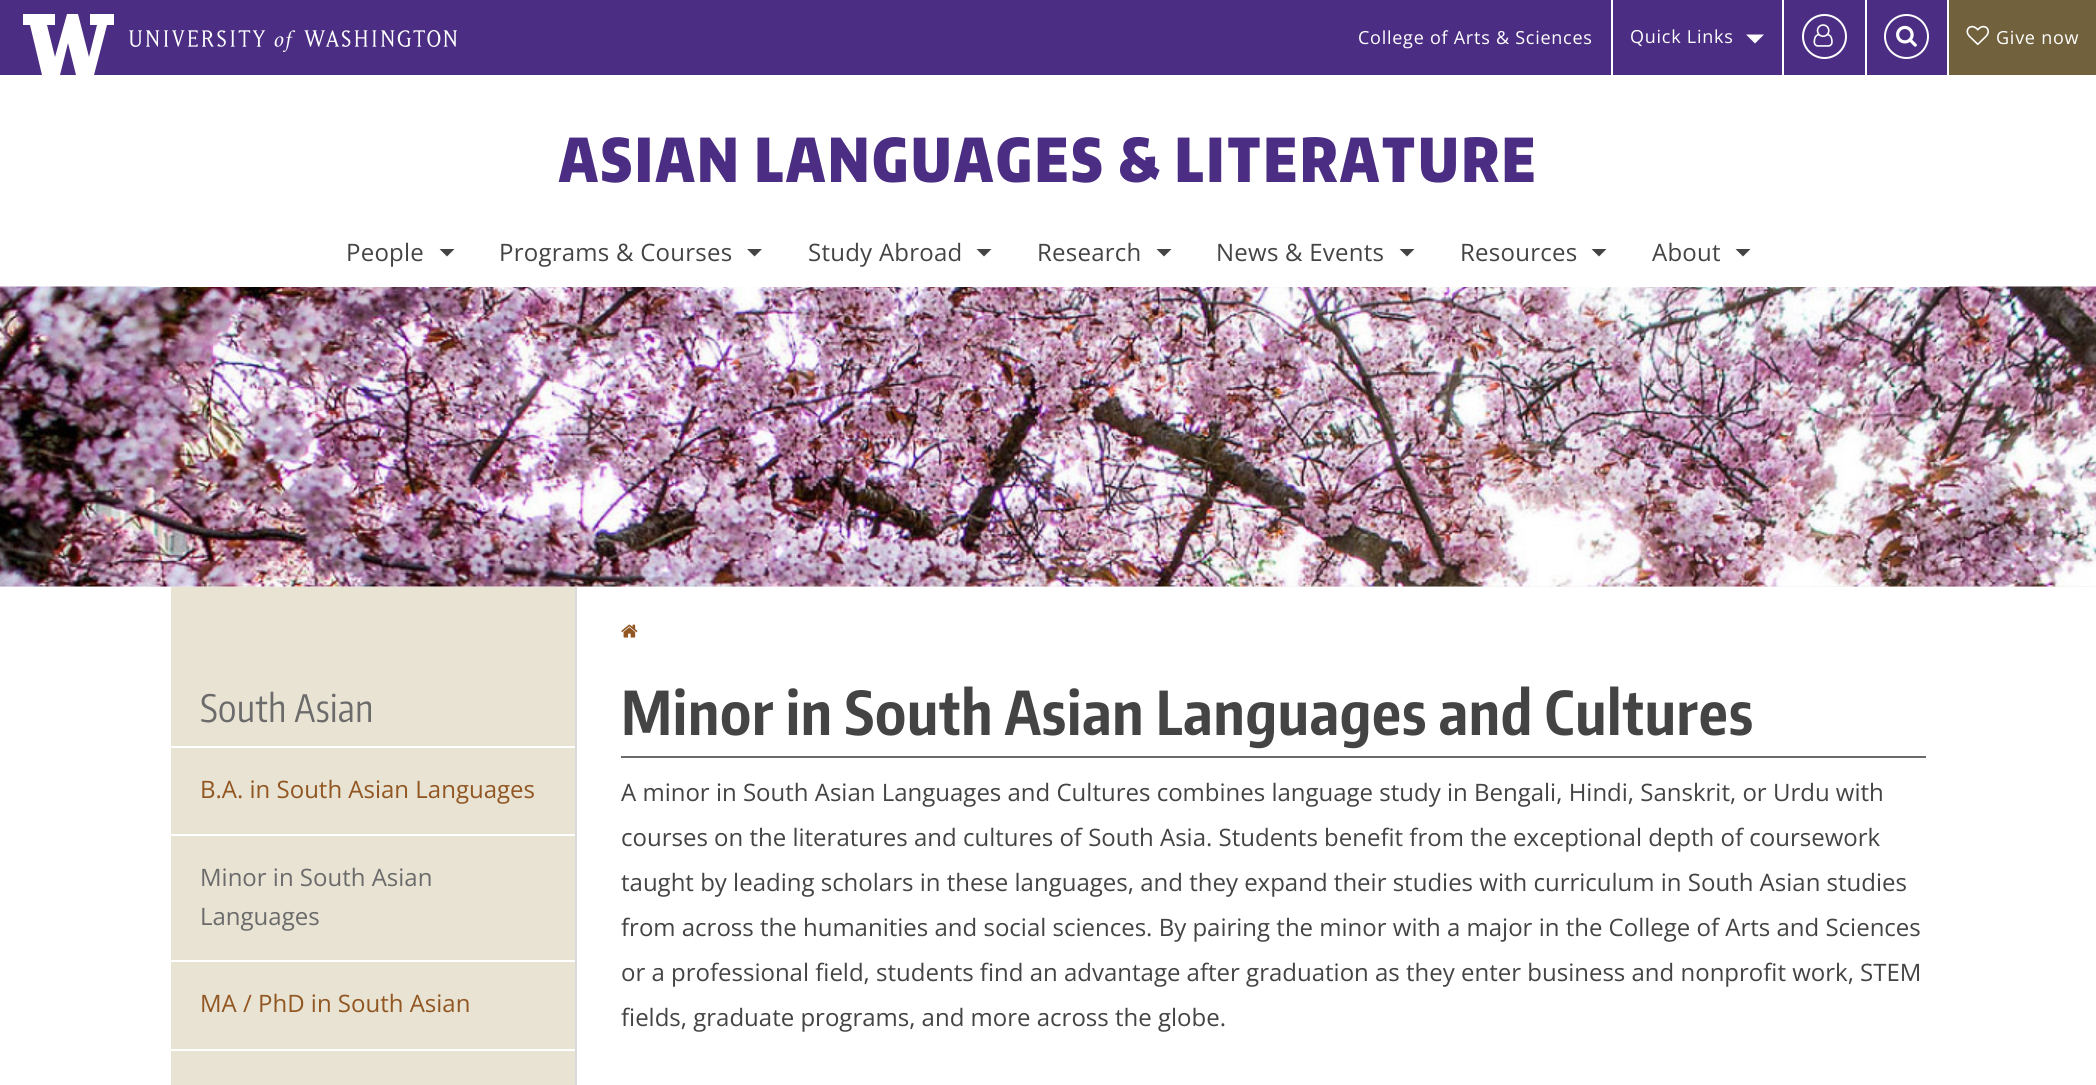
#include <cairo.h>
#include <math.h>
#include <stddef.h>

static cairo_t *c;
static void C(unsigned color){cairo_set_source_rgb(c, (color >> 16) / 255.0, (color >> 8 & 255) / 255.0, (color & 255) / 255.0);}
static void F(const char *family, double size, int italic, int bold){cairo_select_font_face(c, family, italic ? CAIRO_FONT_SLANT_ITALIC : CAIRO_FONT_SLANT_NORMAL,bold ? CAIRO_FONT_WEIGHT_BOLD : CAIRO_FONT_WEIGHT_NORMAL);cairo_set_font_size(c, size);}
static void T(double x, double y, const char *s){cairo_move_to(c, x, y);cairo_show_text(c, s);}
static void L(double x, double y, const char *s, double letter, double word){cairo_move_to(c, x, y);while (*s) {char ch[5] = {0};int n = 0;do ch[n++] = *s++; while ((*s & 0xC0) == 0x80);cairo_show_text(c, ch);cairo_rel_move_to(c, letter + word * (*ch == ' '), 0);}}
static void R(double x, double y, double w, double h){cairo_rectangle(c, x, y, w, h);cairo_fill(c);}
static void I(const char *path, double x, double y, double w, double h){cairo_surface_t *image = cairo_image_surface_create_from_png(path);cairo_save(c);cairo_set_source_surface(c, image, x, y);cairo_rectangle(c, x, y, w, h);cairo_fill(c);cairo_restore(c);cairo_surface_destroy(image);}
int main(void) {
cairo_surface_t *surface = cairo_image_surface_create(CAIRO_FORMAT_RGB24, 2096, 1085);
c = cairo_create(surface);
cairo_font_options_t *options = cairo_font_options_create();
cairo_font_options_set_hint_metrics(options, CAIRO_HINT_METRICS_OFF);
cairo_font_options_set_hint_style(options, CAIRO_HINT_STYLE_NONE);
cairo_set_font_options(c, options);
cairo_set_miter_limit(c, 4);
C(0xffffff);
cairo_paint(c);
C(0x4b2e83);
R(0,0,1947,75);
cairo_save(c);
cairo_rectangle(c,23,14,91,61);
cairo_clip(c);
C(0xffffff);
cairo_new_path(c);
cairo_move_to(c,90,14);
cairo_line_to(c,90,25);
cairo_line_to(c,97,25);
cairo_line_to(c,89,57);
cairo_line_to(c,78,14);
cairo_line_to(c,67,14);
cairo_line_to(c,55,57);
cairo_line_to(c,47,25);
cairo_line_to(c,55,25);
cairo_line_to(c,55,14);
cairo_line_to(c,22,14);
cairo_line_to(c,22,25);
cairo_line_to(c,30,25);
cairo_line_to(c,42,75);
cairo_line_to(c,60,75);
cairo_line_to(c,68,43);
cairo_line_to(c,76,75);
cairo_line_to(c,94,75);
cairo_line_to(c,107,25);
cairo_line_to(c,114,25);
cairo_line_to(c,114,14);
cairo_close_path(c);
cairo_fill(c);
cairo_restore(c);
I("1.png",129,30,328,22);
F("Open Sans",18,0,0);
C(0xffffff);
L(1358,44,"College of Arts & Sciences",.75,0);
R(1611,0,2,75);
L(1630,43,"Quick Links",.75,0);
cairo_new_path(c);
cairo_move_to(c,1746,34.5);
cairo_line_to(c,1764,34.5);
cairo_line_to(c,1755,43.5);
cairo_close_path(c);
cairo_fill(c);
R(1782,0,2,75);
cairo_arc(c,1824.5,36.5,21.5,0,2 * M_PI);
cairo_stroke(c);
I("2.png",1813,24,20,23);
R(1865,0,2,75);
cairo_arc(c,1906.5,36.5,21.5,0,2 * M_PI);
cairo_stroke(c);
I("3.png",1896,25,21,22);
C(0x71623d);
R(1949,0,147,75);
I("4.png",1966,25,23,21);
C(0xffffff);
L(1996,44,"Give now",.75,0);
C(0xefefef);
R(0,586,2096,1);
I("5.png",0,286,2096,301);
C(0xffffff);
R(149,286,1800,1);
F("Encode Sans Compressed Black",60,0,0);
C(0x4b2e83);
L(559,182,"ASIAN LANGUAGES & LITERATURE",3,0);
F("Open Sans",24,0,0);
C(0x444444);
L(346,261,"People",.25,0);
cairo_new_path(c);
cairo_move_to(c,439.5,249);
cairo_line_to(c,454.5,249);
cairo_line_to(c,447,256.5);
cairo_close_path(c);
cairo_fill(c);
L(499,261,"Programs & Courses",.25,0);
cairo_new_path(c);
cairo_move_to(c,747,249);
cairo_line_to(c,762,249);
cairo_line_to(c,754.5,256.5);
cairo_close_path(c);
cairo_fill(c);
L(808,261,"Study Abroad",.25,0);
cairo_new_path(c);
cairo_move_to(c,976.5,249);
cairo_line_to(c,991.5,249);
cairo_line_to(c,984,256.5);
cairo_close_path(c);
cairo_fill(c);
L(1037,261,"Research",.25,0);
cairo_new_path(c);
cairo_move_to(c,1156.5,249);
cairo_line_to(c,1171.5,249);
cairo_line_to(c,1164,256.5);
cairo_close_path(c);
cairo_fill(c);
L(1216,261,"News & Events",.25,0);
cairo_new_path(c);
cairo_move_to(c,1399.5,249);
cairo_line_to(c,1414.5,249);
cairo_line_to(c,1407,256.5);
cairo_close_path(c);
cairo_fill(c);
L(1460,261,"Resources",.25,0);
cairo_new_path(c);
cairo_move_to(c,1591.5,249);
cairo_line_to(c,1606.5,249);
cairo_line_to(c,1599,256.5);
cairo_close_path(c);
cairo_fill(c);
L(1652,261,"About",.25,0);
cairo_new_path(c);
cairo_move_to(c,1735.5,249);
cairo_line_to(c,1750.5,249);
cairo_line_to(c,1743,256.5);
cairo_close_path(c);
cairo_fill(c);
C(0xe8e3d3);
R(171,587,404,498);
C(0xd9d9d9);
R(575,587,2,498);
F("Encode Sans Compressed",37.5,0,0);
C(0x6b6b6b);
L(200,722,"South Asian",.5,0);
C(0xffffff);
R(171,746,404,2);
F("Open Sans",24,0,0);
C(0x915622);
T(200,798,"B.A. in South Asian Languages");
C(0xffffff);
R(171,834,404,2);
C(0x6b6b6b);
T(200,886,"Minor in South Asian");
T(200,925,"Languages");
C(0xffffff);
R(171,960,404,2);
C(0x915622);
T(200,1012,"MA / PhD in South Asian");
C(0xffffff);
R(171,1049,404,2);
I("6.png",621,624,17,14);
F("Encode Sans Compressed",60,0,1);
C(0x444444);
L(621,735,"Minor in South Asian Languages and Cultures",.75,0);
C(0x6b6b6b);
R(621,756,1305,2);
F("Open Sans",24,0,0);
C(0x444444);
T(621,801,"A minor in South Asian Languages and Cultures combines language study in Bengali, Hindi, Sanskrit, or Urdu with");
T(621,846,"courses on the literatures and cultures of South Asia. Students benefit from the exceptional depth of coursework");
T(621,891,"taught by leading scholars in these languages, and they expand their studies with curriculum in South Asian studies");
T(621,936,"from across the humanities and social sciences. By pairing the minor with a major in the College of Arts and Sciences");
T(621,981,"or a professional field, students find an advantage after graduation as they enter business and nonprofit work, STEM");
T(621,1026,"fields, graduate programs, and more across the globe.");
cairo_surface_write_to_png(surface, "o.png");
cairo_font_options_destroy(options);
cairo_destroy(c);
cairo_surface_destroy(surface);
return 0;
}
